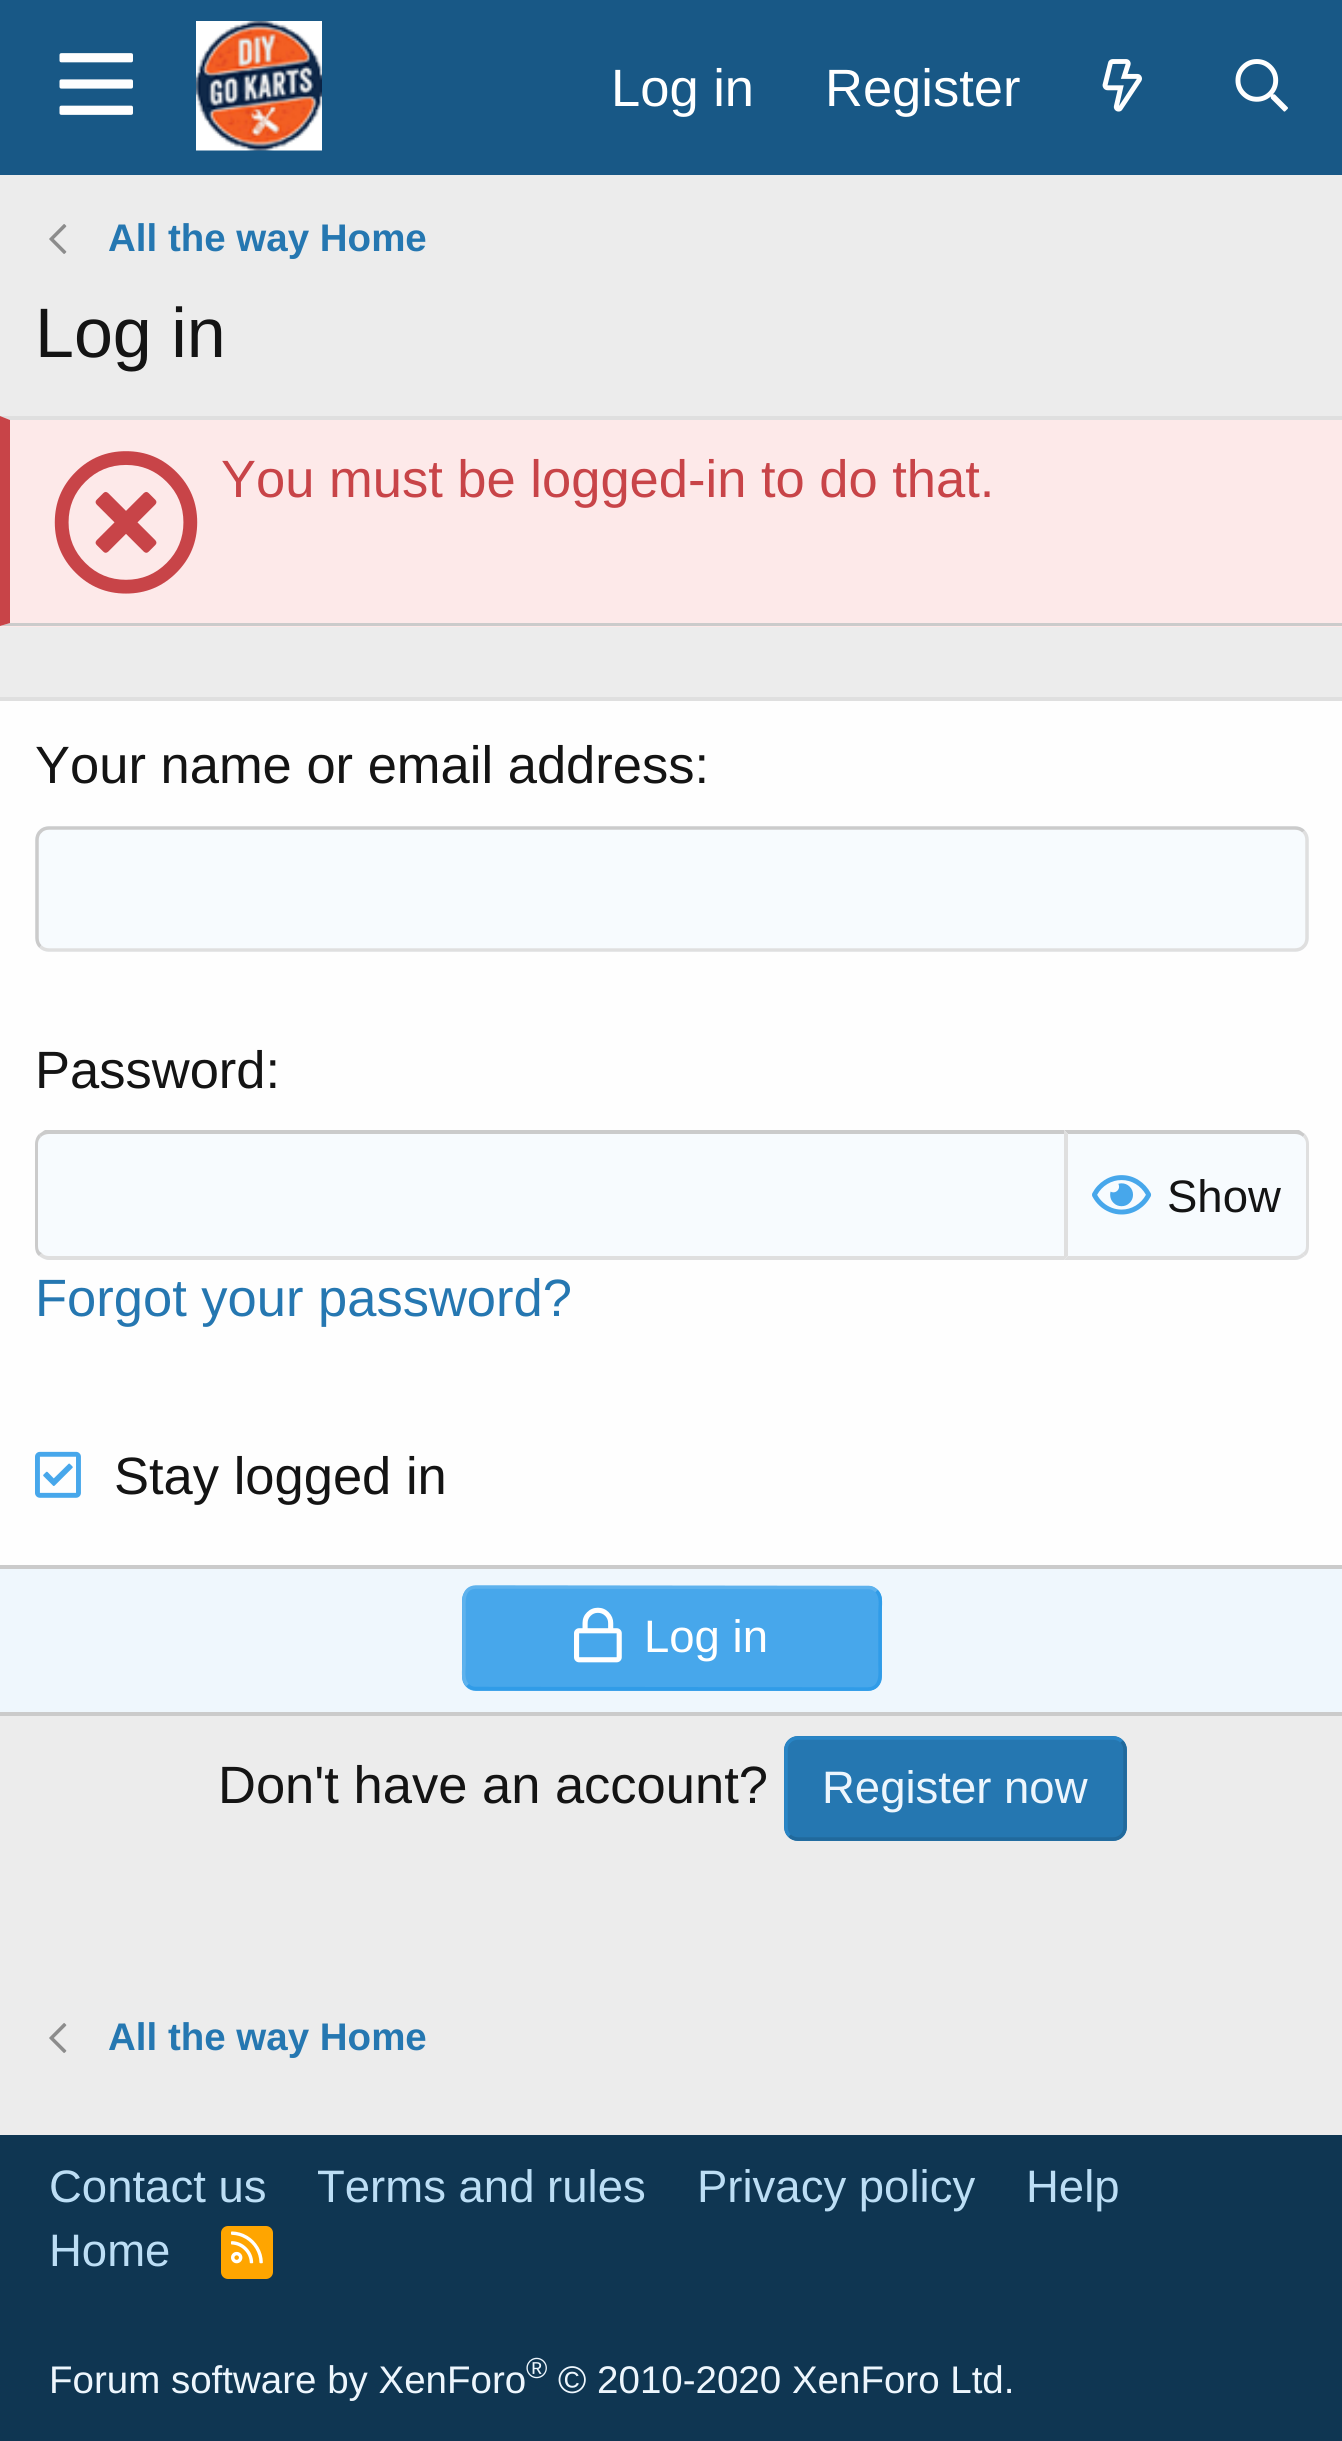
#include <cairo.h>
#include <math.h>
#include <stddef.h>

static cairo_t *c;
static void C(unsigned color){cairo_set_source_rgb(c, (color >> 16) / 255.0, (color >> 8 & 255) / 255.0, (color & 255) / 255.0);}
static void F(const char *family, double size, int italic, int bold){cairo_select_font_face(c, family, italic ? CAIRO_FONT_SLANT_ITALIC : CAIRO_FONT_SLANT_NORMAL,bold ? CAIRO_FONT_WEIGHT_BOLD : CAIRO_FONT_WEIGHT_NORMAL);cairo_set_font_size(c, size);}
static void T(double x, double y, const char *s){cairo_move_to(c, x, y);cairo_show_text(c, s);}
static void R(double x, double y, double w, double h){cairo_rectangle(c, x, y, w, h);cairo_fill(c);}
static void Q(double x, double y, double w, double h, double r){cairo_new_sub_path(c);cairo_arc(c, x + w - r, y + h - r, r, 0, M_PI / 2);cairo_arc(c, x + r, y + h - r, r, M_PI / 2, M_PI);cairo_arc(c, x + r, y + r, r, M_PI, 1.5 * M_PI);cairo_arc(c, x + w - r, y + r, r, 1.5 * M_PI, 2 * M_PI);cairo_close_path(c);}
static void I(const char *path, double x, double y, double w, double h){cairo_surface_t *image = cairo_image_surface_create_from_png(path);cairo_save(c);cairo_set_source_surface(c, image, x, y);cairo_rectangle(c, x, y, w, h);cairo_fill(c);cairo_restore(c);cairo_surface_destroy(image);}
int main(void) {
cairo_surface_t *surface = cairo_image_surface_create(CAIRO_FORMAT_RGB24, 1342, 2441);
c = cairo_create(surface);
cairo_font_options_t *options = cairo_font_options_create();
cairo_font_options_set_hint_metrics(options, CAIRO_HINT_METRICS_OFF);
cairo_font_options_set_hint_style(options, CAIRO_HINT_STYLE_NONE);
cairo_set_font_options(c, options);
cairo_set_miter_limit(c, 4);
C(0xececec);
cairo_paint(c);
C(0x185886);
R(0,0,1342,175);
I("1.png",59,53,74,62);
I("2.png",196,21,126,130);
F("Liberation Sans",52.5,0,0);
C(0xffffff);
T(611,106,"Log in");
T(825,106,"Register");
I("3.png",1102,59,40,53);
I("4.png",1235,59,53,53);
I("5.png",49,224,18,30);
F("Liberation Sans",38.5,0,1);
C(0x2577b1);
T(108,251,"All the way Home");
F("Liberation Sans",70,0,0);
C(0x141414);
T(35,357,"Log in");
C(0xfde9e9);
R(0,417,1342,210);
C(0xdfdfdf);
cairo_new_path(c);
cairo_move_to(c,0,416);
cairo_line_to(c,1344,416);
cairo_line_to(c,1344,420);
cairo_line_to(c,10,420);
cairo_close_path(c);
cairo_fill(c);
C(0xcbcbcb);
cairo_new_path(c);
cairo_move_to(c,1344,626);
cairo_line_to(c,0,626);
cairo_line_to(c,10,623);
cairo_line_to(c,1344,623);
cairo_close_path(c);
cairo_fill(c);
C(0xc84448);
cairo_new_path(c);
cairo_move_to(c,0,626);
cairo_line_to(c,0,416);
cairo_line_to(c,10,420);
cairo_line_to(c,10,623);
cairo_close_path(c);
cairo_fill(c);
I("6.png",54,451,144,143);
F("Liberation Sans",52.5,0,0);
T(221,497,"You must be logged-in to do that.");
C(0xfefefe);
R(0,701,1342,864);
C(0xdfdfdf);
R(0,697,1342,4);
C(0xcbcbcb);
R(0,1712,1342,4);
C(0x141414);
T(35,783,"Your name or email address:");
C(0xf7fbfe);
Q(35,826,1274,126,14);
cairo_fill(c);
cairo_new_path(c);
cairo_move_to(c,1303.5,831.5);
cairo_curve_to(c,1306,833.5,1307,837,1307,840);
cairo_line_to(c,1307,938);
cairo_curve_to(c,1307,941,1306,944.5,1303.5,946.5);
cairo_curve_to(c,1301.5,949,1298,950,1295,950);
cairo_line_to(c,49,950);
cairo_curve_to(c,46,950,42.5,949,40.5,946.5);
C(0xdfdfdf);
cairo_set_line_width(c,3.5);
cairo_stroke(c);
cairo_new_path(c);
cairo_move_to(c,40.5,946.5);
cairo_curve_to(c,38,944.5,37,941,37,938);
cairo_line_to(c,37,840);
cairo_curve_to(c,37,837,38,833.5,40.5,831.5);
cairo_curve_to(c,42.5,829,46,828,49,828);
cairo_line_to(c,1295,828);
cairo_curve_to(c,1298,828,1301.5,829,1303.5,831.5);
C(0xcbcbcb);
cairo_stroke(c);
C(0x141414);
T(35,1088,"Password:");
C(0xf7fbfe);
cairo_new_path(c);
cairo_move_to(c,49,1131);
cairo_line_to(c,1064,1131);
cairo_line_to(c,1064,1260);
cairo_line_to(c,49,1260);
cairo_curve_to(c,41.5,1260,35,1253.5,35,1246);
cairo_line_to(c,35,1145);
cairo_curve_to(c,35,1137.5,41.5,1131,49,1131);
cairo_close_path(c);
cairo_fill(c);
C(0xcbcbcb);
cairo_new_path(c);
cairo_move_to(c,49,1134);
cairo_curve_to(c,46,1134,43,1135,41,1137);
cairo_line_to(c,39,1134);
cairo_curve_to(c,41,1133,43,1131,45,1130);
cairo_line_to(c,1064,1130);
cairo_line_to(c,1064,1134);
cairo_close_path(c);
cairo_fill(c);
C(0xdfdfdf);
cairo_new_path(c);
cairo_move_to(c,1064,1260);
cairo_line_to(c,1064,1256);
cairo_line_to(c,49,1256);
cairo_curve_to(c,46,1256,43,1255,42,1253);
cairo_line_to(c,39,1256);
cairo_curve_to(c,42,1258,45,1260,49,1260);
cairo_close_path(c);
cairo_fill(c);
C(0xcbcbcb);
cairo_new_path(c);
cairo_move_to(c,35,1144);
cairo_line_to(c,35,1246);
cairo_curve_to(c,35,1250,36,1254,39,1256);
cairo_line_to(c,42,1253);
cairo_curve_to(c,39,1252,38,1249,38,1246);
cairo_line_to(c,38,1144);
cairo_curve_to(c,38,1141,39,1139,41,1137);
cairo_line_to(c,39,1134);
cairo_curve_to(c,36,1137,35,1141,35,1144);
cairo_close_path(c);
cairo_fill(c);
C(0xf7fbfe);
cairo_new_path(c);
cairo_move_to(c,1064,1131);
cairo_line_to(c,1295,1131);
cairo_curve_to(c,1302.5,1131,1309,1137.5,1309,1145);
cairo_line_to(c,1309,1246);
cairo_curve_to(c,1309,1253.5,1302.5,1260,1295,1260);
cairo_line_to(c,1064,1260);
cairo_close_path(c);
cairo_fill(c);
C(0xcbcbcb);
cairo_new_path(c);
cairo_move_to(c,1068,1134);
cairo_line_to(c,1064,1130);
cairo_line_to(c,1299,1130);
cairo_curve_to(c,1301,1131,1303,1133,1305,1134);
cairo_line_to(c,1303,1137);
cairo_curve_to(c,1301,1135,1298,1134,1295,1134);
cairo_close_path(c);
cairo_fill(c);
C(0xdfdfdf);
cairo_new_path(c);
cairo_move_to(c,1309,1246);
cairo_line_to(c,1309,1144);
cairo_curve_to(c,1309,1141,1308,1137,1305,1134);
cairo_line_to(c,1303,1137);
cairo_curve_to(c,1305,1139,1306,1141,1306,1144);
cairo_line_to(c,1306,1246);
cairo_curve_to(c,1306,1249,1305,1252,1302,1253);
cairo_line_to(c,1305,1256);
cairo_curve_to(c,1308,1254,1309,1250,1309,1246);
cairo_close_path(c);
cairo_fill(c);
cairo_new_path(c);
cairo_move_to(c,1295,1260);
cairo_curve_to(c,1299,1260,1302,1258,1305,1256);
cairo_line_to(c,1302,1253);
cairo_curve_to(c,1301,1255,1298,1256,1295,1256);
cairo_line_to(c,1068,1256);
cairo_line_to(c,1064,1260);
cairo_close_path(c);
cairo_fill(c);
cairo_new_path(c);
cairo_move_to(c,1064,1260);
cairo_line_to(c,1068,1256);
cairo_line_to(c,1068,1134);
cairo_line_to(c,1064,1130);
cairo_close_path(c);
cairo_fill(c);
I("7.png",1092,1175,60,40);
F("Liberation Sans",45.5,0,0);
C(0x141414);
T(1167,1212,"Show");
F("Liberation Sans",52.5,0,0);
C(0x2577b1);
T(35,1316,"Forgot your password?");
I("8.png",35,1451,46,47);
C(0x141414);
T(114,1494,"Stay logged in");
C(0xeff7fd);
R(0,1569,1342,143);
C(0xcbcbcb);
R(0,1565,1342,4);
C(0x47a7eb);
Q(462,1586,420,105,14);
cairo_fill(c);
cairo_new_path(c);
cairo_move_to(c,876.5,1591);
cairo_curve_to(c,882,1596.5,880,1605.5,880,1612.5);
cairo_line_to(c,880,1663.5);
cairo_curve_to(c,880,1673,882.5,1688.5,868,1689);
cairo_line_to(c,475,1688.5);
cairo_curve_to(c,472,1688.5,469.5,1687,467.5,1685);
C(0x309ce8);
cairo_stroke(c);
cairo_new_path(c);
cairo_move_to(c,467.5,1685);
cairo_curve_to(c,462,1679.5,464,1670.5,464,1663.5);
cairo_line_to(c,464,1612.5);
cairo_curve_to(c,464,1603,461.5,1587.5,476,1587);
cairo_line_to(c,869,1587.5);
cairo_curve_to(c,872,1587.5,874.5,1589,876.5,1591);
C(0x5eb2ed);
cairo_stroke(c);
I("9.png",574,1607,48,56);
F("Liberation Sans",45.5,0,0);
C(0xffffff);
T(644,1652,"Log in");
F("Liberation Sans",52.5,0,0);
C(0x141414);
T(218,1803,"Don't have an account?");
C(0x2577b1);
Q(784,1736,343,105,14);
cairo_fill(c);
cairo_new_path(c);
cairo_move_to(c,1121.5,1741.5);
cairo_curve_to(c,1124,1743.5,1125,1747,1125,1750);
cairo_line_to(c,1125,1827);
cairo_curve_to(c,1125,1830,1124,1833.5,1121.5,1835.5);
cairo_curve_to(c,1119.5,1838,1116,1839,1113,1839);
cairo_line_to(c,798,1839);
cairo_curve_to(c,795,1839,791.5,1838,789.5,1835.5);
C(0x21699c);
cairo_stroke(c);
cairo_new_path(c);
cairo_move_to(c,789.5,1835.5);
cairo_curve_to(c,787,1833.5,786,1830,786,1827);
cairo_line_to(c,786,1750);
cairo_curve_to(c,786,1747,787,1743.5,789.5,1741.5);
cairo_curve_to(c,791.5,1739,795,1738,798,1738);
cairo_line_to(c,1113,1738);
cairo_curve_to(c,1116,1738,1119.5,1739,1121.5,1741.5);
C(0x2985c6);
cairo_stroke(c);
F("Liberation Sans",45.5,0,0);
C(0xedf6fd);
T(822,1803,"Register now");
I("5.png",49,2023,18,30);
F("Liberation Sans",38.5,0,1);
C(0x2577b1);
T(108,2050,"All the way Home");
C(0x0f3652);
R(0,2135,1342,306);
F("Liberation Sans",45.5,0,0);
C(0xbcdef5);
T(49,2202,"Contact us");
T(317,2202,"Terms and rules");
T(697,2202,"Privacy policy");
T(1026,2202,"Help");
T(49,2266,"Home");
C(0xffa500);
Q(221,2226,52,53,7);
cairo_fill(c);
I("10.png",231,2231,32,33);
F("Liberation Sans",38.5,0,0);
C(0xedf6fd);
T(49,2393,"Forum software by XenForo");
F("Liberation Sans",29,0,0);
T(526,2378,"®");
F("Liberation Sans",38.5,0,0);
T(558,2393,"© 2010-2020 XenForo Ltd.");
cairo_surface_write_to_png(surface, "o.png");
cairo_font_options_destroy(options);
cairo_destroy(c);
cairo_surface_destroy(surface);
return 0;
}
